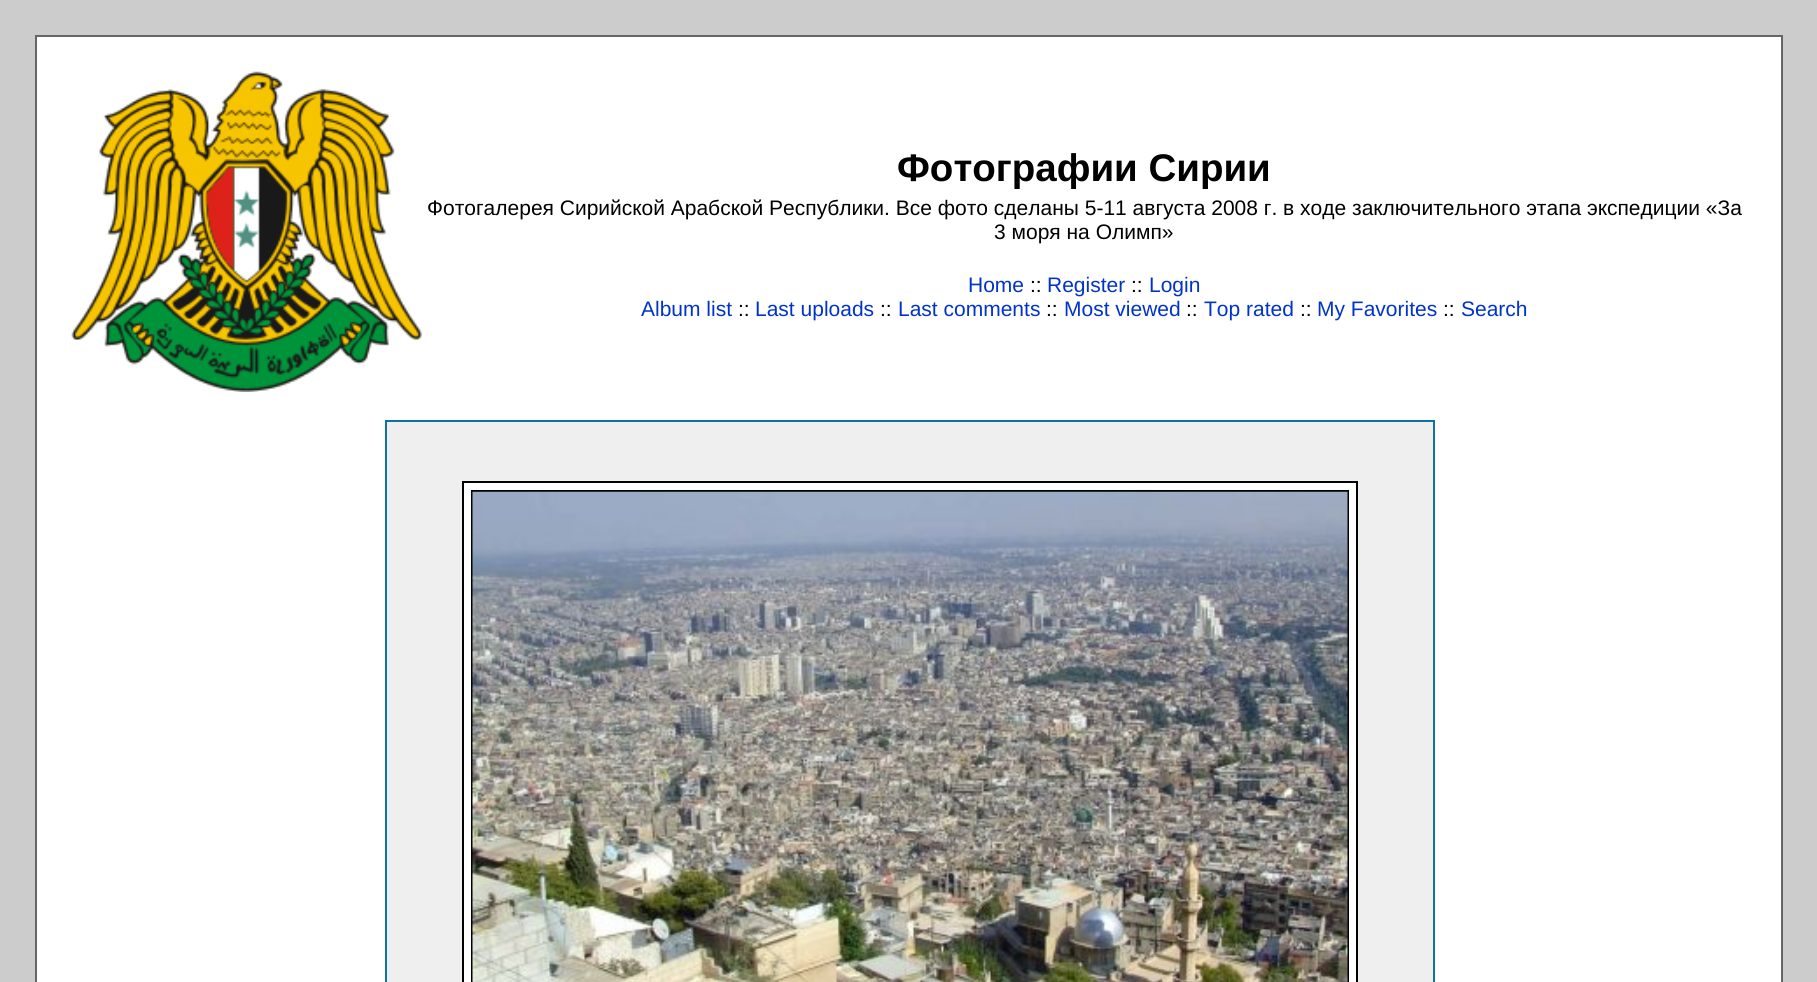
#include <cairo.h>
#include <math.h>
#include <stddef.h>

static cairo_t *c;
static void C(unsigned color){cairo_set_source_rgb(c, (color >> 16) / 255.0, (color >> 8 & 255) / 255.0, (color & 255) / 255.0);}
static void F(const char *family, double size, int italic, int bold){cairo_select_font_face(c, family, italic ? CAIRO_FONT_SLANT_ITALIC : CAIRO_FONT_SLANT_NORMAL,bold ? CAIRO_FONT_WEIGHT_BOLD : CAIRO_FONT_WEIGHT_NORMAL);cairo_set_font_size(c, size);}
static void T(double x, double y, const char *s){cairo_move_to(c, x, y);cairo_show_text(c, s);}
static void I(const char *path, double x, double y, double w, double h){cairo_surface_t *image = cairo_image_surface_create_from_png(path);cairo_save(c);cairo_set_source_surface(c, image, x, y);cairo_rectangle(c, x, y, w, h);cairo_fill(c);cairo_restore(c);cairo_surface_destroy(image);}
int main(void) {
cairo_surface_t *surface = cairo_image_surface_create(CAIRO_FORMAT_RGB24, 1817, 982);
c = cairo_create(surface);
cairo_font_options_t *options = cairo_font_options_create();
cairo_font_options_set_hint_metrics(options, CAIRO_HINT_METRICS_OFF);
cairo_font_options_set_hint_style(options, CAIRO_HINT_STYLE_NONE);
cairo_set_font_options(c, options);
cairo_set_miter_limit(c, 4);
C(0xcccccc);
cairo_paint(c);
C(0xffffff);
cairo_rectangle(c,36,36,1746,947);
cairo_fill_preserve(c);
C(0x666666);
cairo_stroke(c);
I("1.png",71,71,351,321);
F("Liberation Sans",38.5,0,1);
C(0x000000);
T(897,181,"Фотографии Сирии");
F("Liberation Sans",21,0,0);
T(427,215,"Фотогалерея Сирийской Арабской Республики. Все фото сделаны 5-11 августа 2008 г. в ходе заключительного этапа экспедиции «За");
T(994,239,"3 моря на Олимп»");
C(0x0033cc);
T(968,292,"Home");
C(0x000000);
T(1030,292,"::");
C(0x0033cc);
T(1047,292,"Register");
C(0x000000);
T(1131,292,"::");
C(0x0033cc);
T(1149,292,"Login");
T(641,316,"Album list");
C(0x000000);
T(738,316,"::");
C(0x0033cc);
T(755,316,"Last uploads");
C(0x000000);
T(880,316,"::");
C(0x0033cc);
T(898,316,"Last comments");
C(0x000000);
T(1046,316,"::");
C(0x0033cc);
T(1064,316,"Most viewed");
C(0x000000);
T(1186,316,"::");
C(0x0033cc);
T(1204,316,"Top rated");
C(0x000000);
T(1300,316,"::");
C(0x0033cc);
T(1317,316,"My Favorites");
C(0x000000);
T(1443,316,"::");
C(0x0033cc);
T(1461,316,"Search");
C(0xefefef);
cairo_rectangle(c,386,421,1048,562);
cairo_fill_preserve(c);
C(0x0e72a4);
cairo_stroke(c);
C(0xffffff);
cairo_rectangle(c,463,482,894,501);
cairo_fill_preserve(c);
C(0x000000);
cairo_stroke(c);
cairo_rectangle(c,472,491,876,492);
cairo_stroke(c);
I("2.png",472,491,876,491);
cairo_surface_write_to_png(surface, "o.png");
cairo_font_options_destroy(options);
cairo_destroy(c);
cairo_surface_destroy(surface);
return 0;
}
